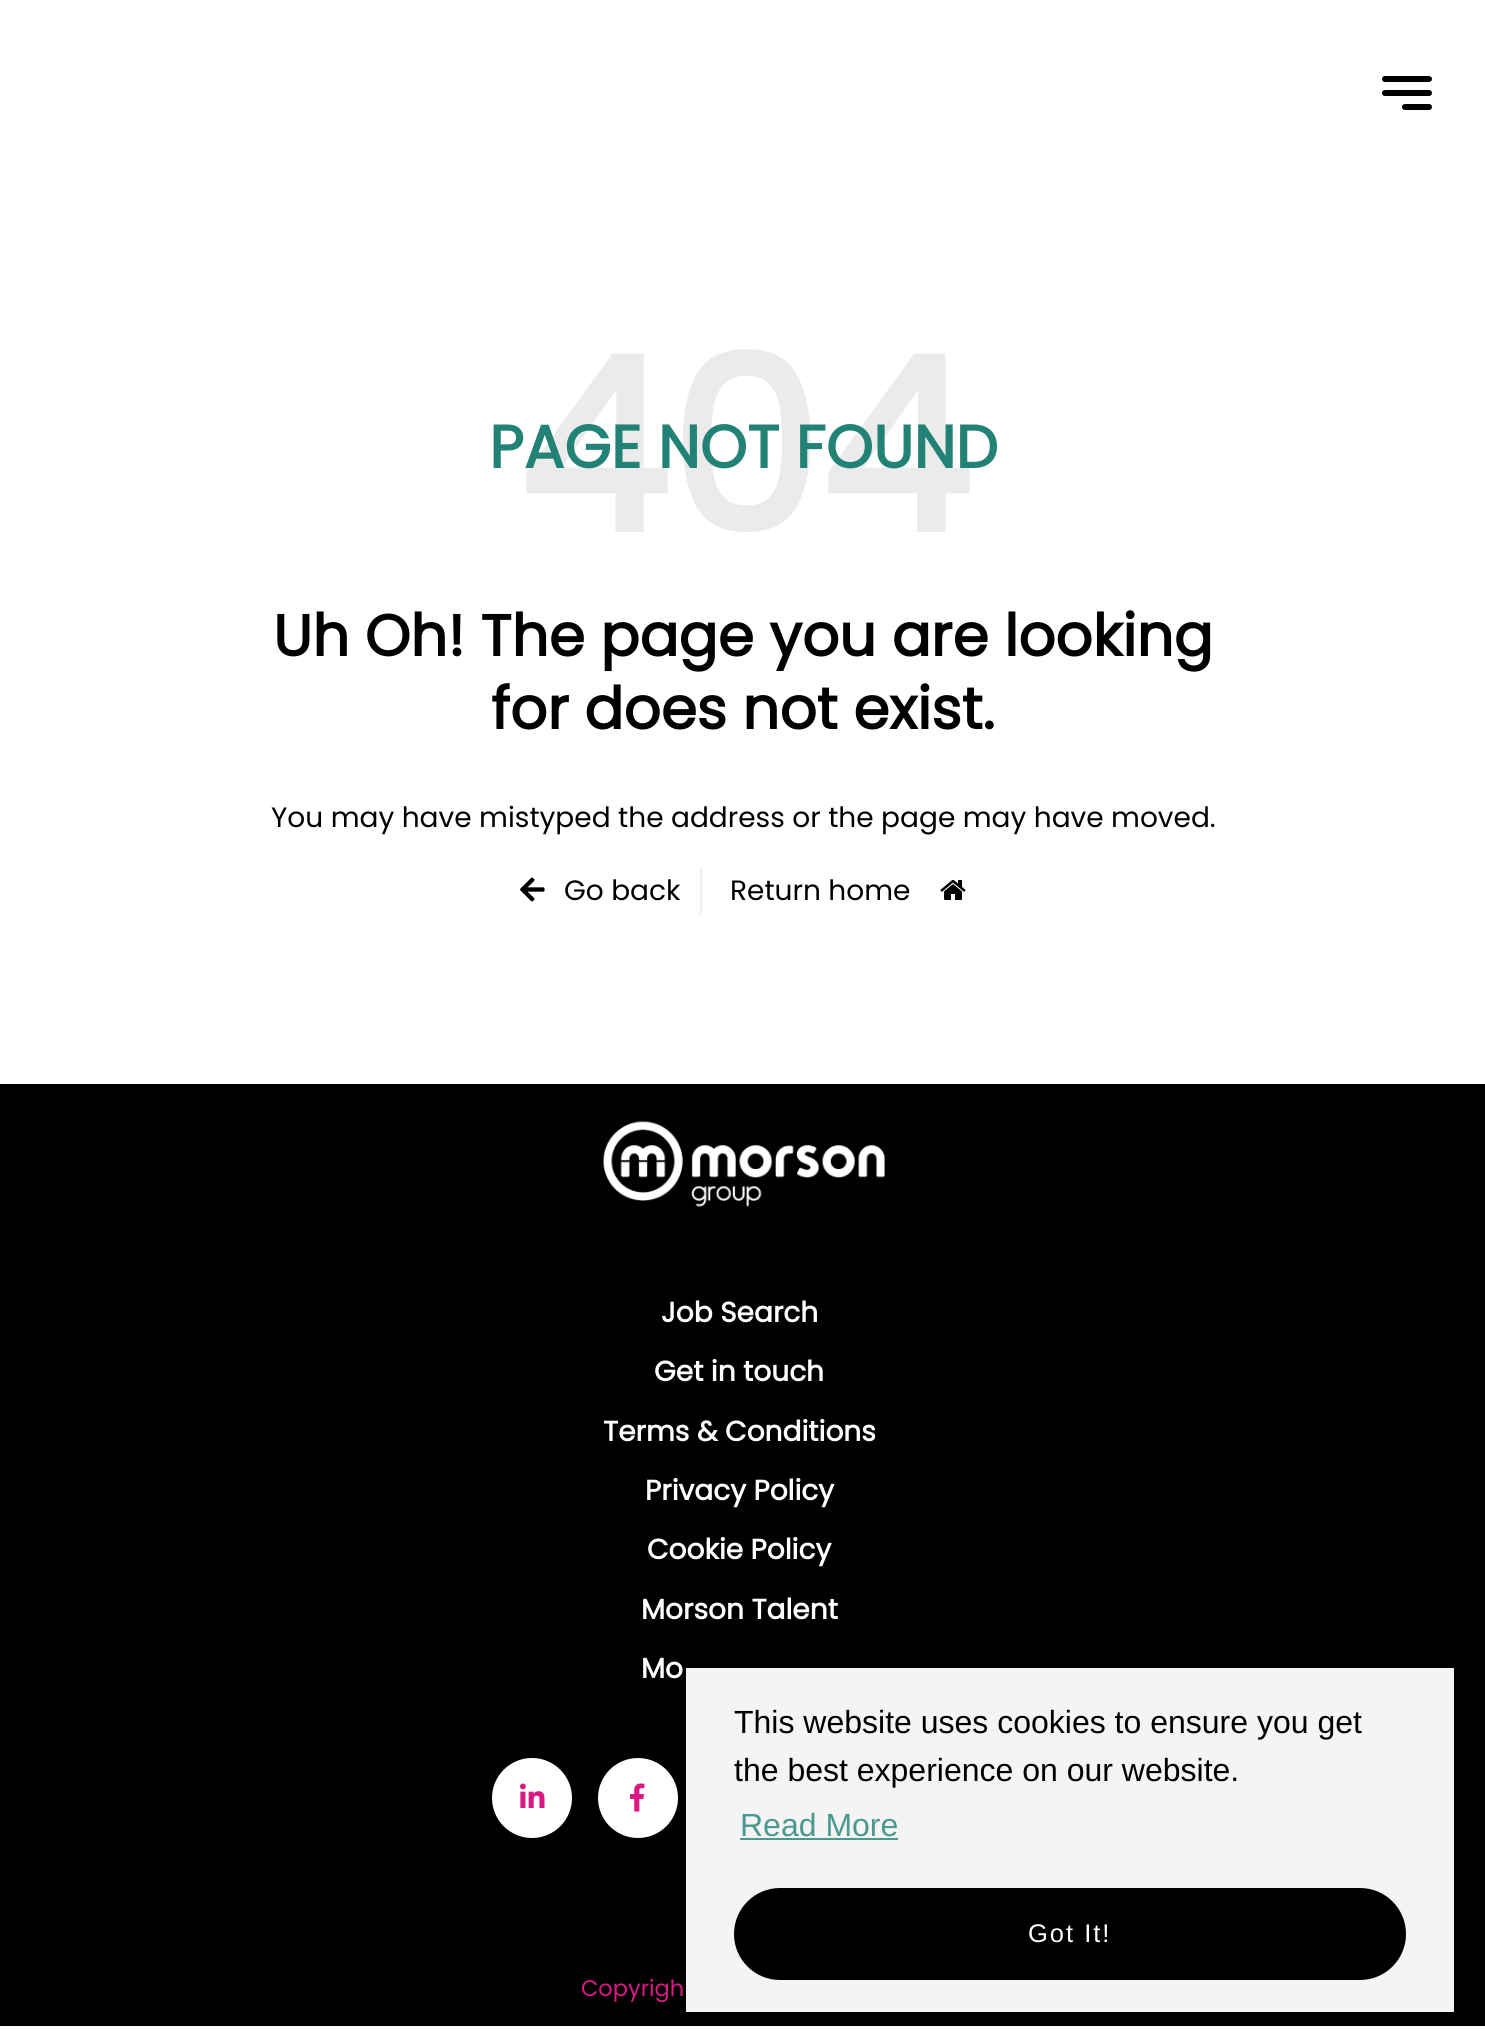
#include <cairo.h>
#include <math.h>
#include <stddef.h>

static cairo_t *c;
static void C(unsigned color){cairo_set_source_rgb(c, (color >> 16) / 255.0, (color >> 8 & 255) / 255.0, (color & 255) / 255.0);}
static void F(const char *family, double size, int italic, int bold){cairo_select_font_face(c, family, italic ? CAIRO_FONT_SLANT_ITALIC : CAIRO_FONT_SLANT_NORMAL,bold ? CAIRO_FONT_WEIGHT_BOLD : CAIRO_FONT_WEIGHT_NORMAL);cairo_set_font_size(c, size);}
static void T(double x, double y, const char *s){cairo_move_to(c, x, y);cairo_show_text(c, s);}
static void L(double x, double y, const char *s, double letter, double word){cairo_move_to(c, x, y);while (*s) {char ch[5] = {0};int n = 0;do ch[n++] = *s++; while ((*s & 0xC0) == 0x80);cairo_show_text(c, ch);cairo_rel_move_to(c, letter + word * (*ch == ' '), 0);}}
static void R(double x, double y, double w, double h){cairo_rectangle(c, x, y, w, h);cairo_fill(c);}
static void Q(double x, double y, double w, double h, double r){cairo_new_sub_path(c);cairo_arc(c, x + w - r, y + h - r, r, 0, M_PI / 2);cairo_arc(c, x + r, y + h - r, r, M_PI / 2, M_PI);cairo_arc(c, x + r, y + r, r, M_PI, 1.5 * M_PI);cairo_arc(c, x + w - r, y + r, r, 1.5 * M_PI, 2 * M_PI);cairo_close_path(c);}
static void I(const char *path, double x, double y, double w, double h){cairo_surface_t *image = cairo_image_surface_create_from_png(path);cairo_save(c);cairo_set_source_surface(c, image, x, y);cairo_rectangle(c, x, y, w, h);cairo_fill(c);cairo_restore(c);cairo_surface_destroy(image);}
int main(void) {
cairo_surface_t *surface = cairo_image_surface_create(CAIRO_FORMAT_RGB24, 1485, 2043);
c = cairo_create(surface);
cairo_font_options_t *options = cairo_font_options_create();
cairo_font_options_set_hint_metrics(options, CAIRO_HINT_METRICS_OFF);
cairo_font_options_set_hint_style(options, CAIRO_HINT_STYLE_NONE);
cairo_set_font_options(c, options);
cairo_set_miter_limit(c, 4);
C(0xffffff);
cairo_paint(c);
C(0x000000);
Q(1382,90,50,6,3);
cairo_fill(c);
Q(1382,76,50,6,3);
cairo_fill(c);
Q(1402,104,30,6,3);
cairo_fill(c);
F("Poppins",240,0,1);
C(0xebebeb);
T(517,532,"404");
F("Poppins",60,0,1);
C(0x218275);
T(489,468,"PAGE NOT FOUND");
F("Poppins",58,0,1);
C(0x000000);
T(273,656,"Uh Oh! The page you are looking");
T(491,729,"for does not exist.");
F("Poppins",28,0,0);
T(271,827,"You may have mistyped the address or the page may have moved.");
C(0xeeeeee);
R(700,868,2,46);
I("1.png",520,877,25,25);
C(0x000000);
T(564,900,"Go back");
T(730,900,"Return home");
I("2.png",940,880,26,20);
R(0,1084,1485,942);
I("3.png",603,1121,282,86);
F("Poppins",28,0,1);
C(0xffffff);
T(661,1322,"Job Search");
T(654,1381,"Get in touch");
T(603,1441,"Terms & Conditions");
T(645,1500,"Privacy Policy");
T(647,1559,"Cookie Policy");
T(641,1619,"Morson Talent");
T(641,1678,"Mo");
cairo_new_path(c);
cairo_arc(c,532,1798,39,0,2 * M_PI);
cairo_fill_preserve(c);
cairo_stroke(c);
I("4.png",520,1783,25,25);
cairo_arc(c,638,1798,39,0,2 * M_PI);
cairo_fill_preserve(c);
cairo_stroke(c);
I("5.png",630,1783,15,29);
F("Poppins",22.5,0,0);
C(0xda1984);
T(581,1996,"Copyrigh");
C(0xf4f4f4);
R(686,1668,768,344);
F("Liberation Sans",32,0,0);
C(0x000000);
T(734,1733,"This website uses cookies to ensure you get");
T(734,1781,"the best experience on our website.");
C(0x4b998e);
T(740,1836,"Read More");
R(740,1838,158,2);
C(0x000000);
Q(734,1888,672,92,46);
cairo_fill(c);
F("Liberation Sans",25.5,0,0);
C(0xffffff);
L(1028,1942,"Got It!",2,0);
cairo_surface_write_to_png(surface, "o.png");
cairo_font_options_destroy(options);
cairo_destroy(c);
cairo_surface_destroy(surface);
return 0;
}
